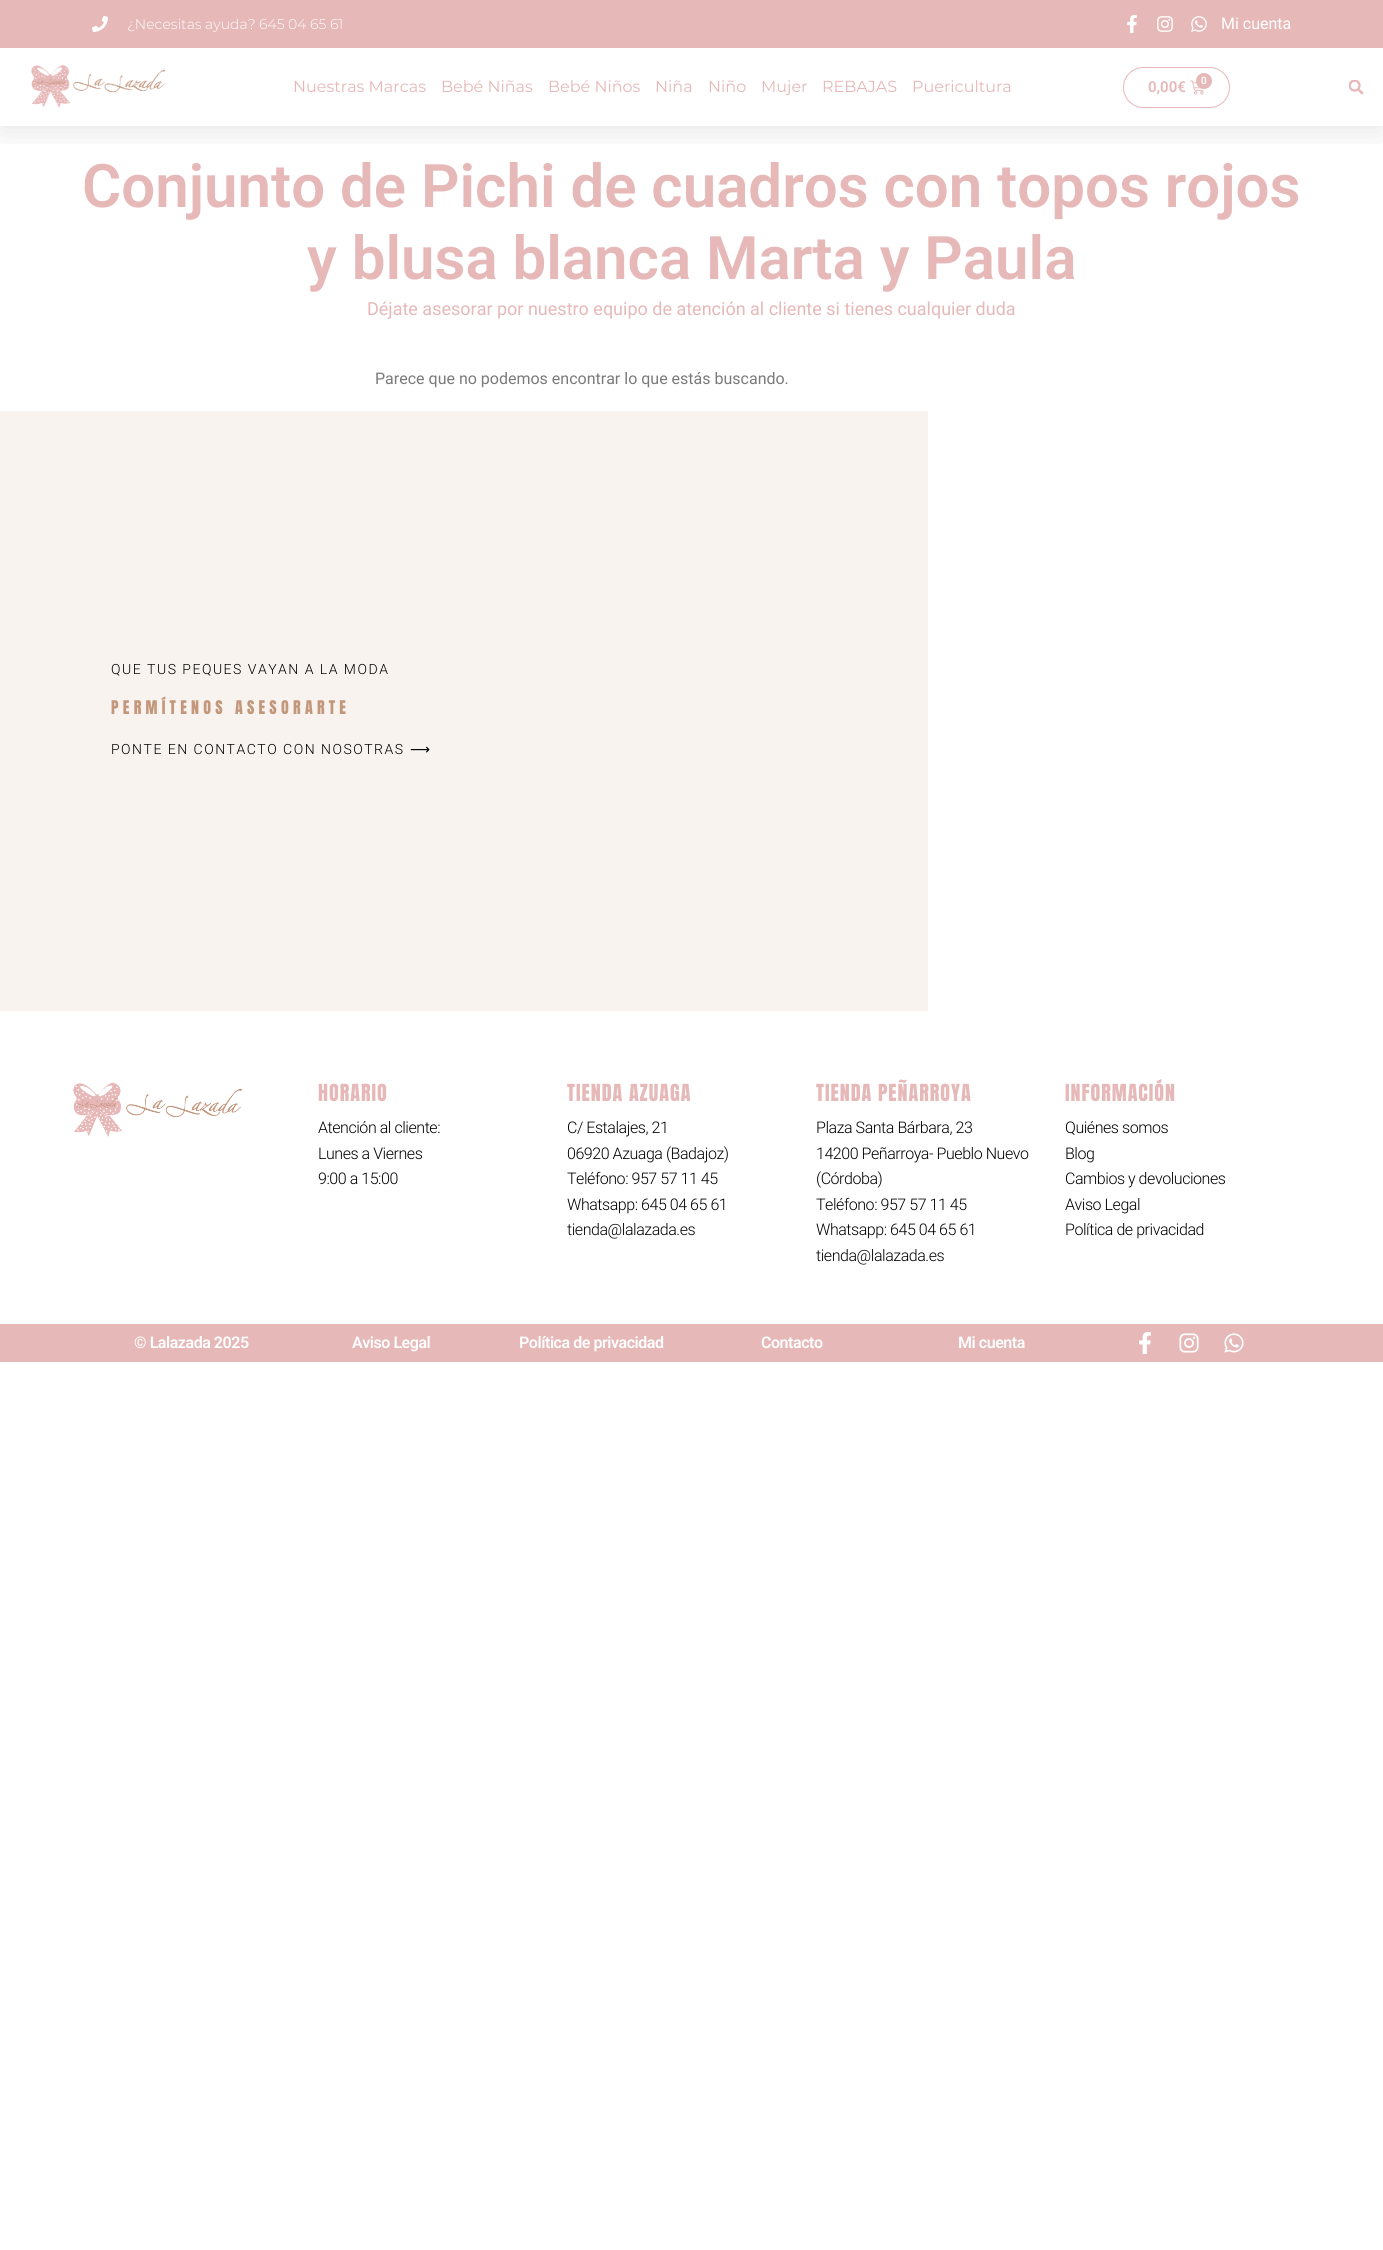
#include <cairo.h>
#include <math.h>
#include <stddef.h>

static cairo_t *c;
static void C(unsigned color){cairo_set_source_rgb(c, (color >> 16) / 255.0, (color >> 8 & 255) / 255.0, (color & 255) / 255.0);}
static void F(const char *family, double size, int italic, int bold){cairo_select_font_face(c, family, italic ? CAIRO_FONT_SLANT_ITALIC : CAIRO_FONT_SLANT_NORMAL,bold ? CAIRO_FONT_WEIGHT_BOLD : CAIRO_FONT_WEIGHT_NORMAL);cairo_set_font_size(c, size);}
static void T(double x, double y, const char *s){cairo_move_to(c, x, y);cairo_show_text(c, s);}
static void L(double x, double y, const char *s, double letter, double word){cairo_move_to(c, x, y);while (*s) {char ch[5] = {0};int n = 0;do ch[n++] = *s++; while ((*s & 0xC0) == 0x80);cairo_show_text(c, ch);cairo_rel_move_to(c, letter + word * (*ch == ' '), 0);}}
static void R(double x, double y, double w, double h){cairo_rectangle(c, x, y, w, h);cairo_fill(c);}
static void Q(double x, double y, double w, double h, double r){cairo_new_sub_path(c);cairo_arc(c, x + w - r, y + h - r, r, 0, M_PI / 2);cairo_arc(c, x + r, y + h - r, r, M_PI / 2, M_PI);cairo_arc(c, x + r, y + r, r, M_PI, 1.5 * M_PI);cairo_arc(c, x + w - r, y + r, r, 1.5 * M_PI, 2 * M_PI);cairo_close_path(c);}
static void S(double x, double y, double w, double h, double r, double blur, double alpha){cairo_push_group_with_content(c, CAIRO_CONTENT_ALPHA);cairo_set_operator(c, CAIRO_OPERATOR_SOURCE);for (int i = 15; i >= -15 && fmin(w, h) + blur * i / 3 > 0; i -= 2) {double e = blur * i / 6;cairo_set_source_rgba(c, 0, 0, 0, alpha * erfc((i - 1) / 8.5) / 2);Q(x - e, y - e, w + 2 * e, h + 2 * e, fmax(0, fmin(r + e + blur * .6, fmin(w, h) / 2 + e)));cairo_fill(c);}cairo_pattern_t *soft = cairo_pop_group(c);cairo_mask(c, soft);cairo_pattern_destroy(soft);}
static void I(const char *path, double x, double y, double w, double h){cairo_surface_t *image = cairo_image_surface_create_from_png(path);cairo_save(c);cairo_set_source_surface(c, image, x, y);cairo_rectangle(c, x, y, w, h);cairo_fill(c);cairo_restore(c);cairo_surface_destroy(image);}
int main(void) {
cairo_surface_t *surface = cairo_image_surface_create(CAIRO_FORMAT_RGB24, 1383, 2250);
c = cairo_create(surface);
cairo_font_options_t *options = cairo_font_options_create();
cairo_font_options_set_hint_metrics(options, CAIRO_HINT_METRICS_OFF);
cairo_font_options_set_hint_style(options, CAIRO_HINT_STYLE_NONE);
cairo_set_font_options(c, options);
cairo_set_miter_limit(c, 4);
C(0xffffff);
cairo_paint(c);
cairo_save(c);
cairo_rectangle(c,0,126,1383,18);
cairo_clip(c);
C(0x000000);
S(0,5,1383,126,0,15,.1);
cairo_restore(c);
C(0xe6b8b8);
R(0,0,1383,48);
I("1.png",92,16,16,16);
F("Montserrat Light",14,0,0);
C(0xffffff);
T(127,29,"¿Necesitas ayuda? 645 04 65 61");
I("2.png",1127,15,10,18);
I("3.png",1157,16,16,16);
I("4.png",1191,16,16,16);
F("Roboto",16,0,0);
T(1221,29,"Mi cuenta");
I("5.png",31,64,135,44);
F("Montserrat",16,0,0);
C(0xe6b8b8);
T(293,92,"Nuestras Marcas");
T(441,92,"Bebé Niñas");
T(548,92,"Bebé Niños");
T(655,92,"Niña");
T(708,92,"Niño");
T(761,92,"Mujer");
T(822,92,"REBAJAS");
T(912,92,"Puericultura");
Q(1123.5,67.5,106,40,20);
cairo_set_line_width(c,1);
cairo_stroke(c);
F("Roboto SemiBold",15,0,0);
T(1148,92,"0,00€");
I("6.png",1190,80,14,15);
cairo_arc(c,1204,81,8,0,2 * M_PI);
cairo_fill(c);
F("Roboto SemiBold",10,0,0);
C(0xffffff);
T(1201,84,"0");
I("7.png",1349,80,15,15);
F("Roboto SemiBold",60,0,0);
C(0xe6b8b8);
T(82,207,"Conjunto de Pichi de cuadros con topos rojos");
T(307,279,"y blusa blanca Marta y Paula");
F("Roboto",18,0,0);
T(367,315,"Déjate asesorar por nuestro equipo de atención al cliente si tienes cualquier duda");
F("Roboto",16,0,0);
C(0x7a7a7a);
T(375,384,"Parece que no podemos encontrar lo que estás buscando.");
C(0xf8f3ef);
R(0,411,928,600);
F("Roboto Light",14,0,0);
C(0x000000);
L(111,674,"QUE TUS PEQUES VAYAN A LA MODA",1.5,0);
F("Anton",16,0,0);
C(0xc2977b);
L(111,714,"PERMÍTENOS ASESORARTE",4.25,0);
F("Roboto Light",14,0,0);
C(0x000000);
L(111,754,"PONTE EN CONTACTO CON NOSOTRAS",1.5,0);
F("DejaVu Sans",14,0,0);
L(410,754,"⟶",1.5,0);
I("8.png",73,1082,169,55);
F("Anton",20,0,0);
C(0xe6b8b8);
L(318,1101,"HORARIO",1,0);
F("Roboto Light",16,0,0);
C(0x000000);
L(318,1133,"Atención al cliente:",-.45,0);
L(318,1159,"Lunes a Viernes",-.45,0);
L(318,1184,"9:00 a 15:00",-.45,0);
F("Anton",20,0,0);
C(0xe6b8b8);
L(567,1101,"TIENDA AZUAGA",1,0);
F("Roboto Light",16,0,0);
C(0x000000);
L(567,1133,"C/ Estalajes, 21",-.45,0);
L(567,1159,"06920 Azuaga (Badajoz)",-.45,0);
L(567,1184,"Teléfono: 957 57 11 45",-.45,0);
L(567,1210,"Whatsapp: 645 04 65 61",-.45,0);
L(567,1235,"tienda@lalazada.es",-.45,0);
F("Anton",20,0,0);
C(0xe6b8b8);
L(816,1101,"TIENDA PEÑARROYA",1,0);
F("Roboto Light",16,0,0);
C(0x000000);
L(816,1133,"Plaza Santa Bárbara, 23",-.45,0);
L(816,1159,"14200 Peñarroya- Pueblo Nuevo",-.45,0);
L(816,1184,"(Córdoba)",-.45,0);
L(816,1210,"Teléfono: 957 57 11 45",-.45,0);
L(816,1235,"Whatsapp: 645 04 65 61",-.45,0);
L(816,1261,"tienda@lalazada.es",-.45,0);
F("Anton",20,0,0);
C(0xe6b8b8);
L(1065,1101,"INFORMACIÓN",1,0);
F("Roboto Light",16,0,0);
C(0x000000);
L(1065,1133,"Quiénes somos",-.45,0);
L(1065,1159,"Blog",-.45,0);
L(1065,1184,"Cambios y devoluciones",-.45,0);
L(1065,1210,"Aviso Legal",-.45,0);
L(1065,1235,"Política de privacidad",-.45,0);
C(0xe6b8b8);
R(0,1324,1383,38);
F("Roboto SemiBold",16,0,0);
C(0xffffff);
L(134,1348,"© Lalazada 2025",-.45,0);
L(352,1348,"Aviso Legal",-.45,0);
L(519,1348,"Política de privacidad",-.45,0);
L(761,1348,"Contacto",-.45,0);
L(958,1348,"Mi cuenta",-.45,0);
I("9.png",1139,1332,12,22);
I("10.png",1179,1333,20,20);
I("11.png",1224,1333,20,20);
cairo_surface_write_to_png(surface, "o.png");
cairo_font_options_destroy(options);
cairo_destroy(c);
cairo_surface_destroy(surface);
return 0;
}
